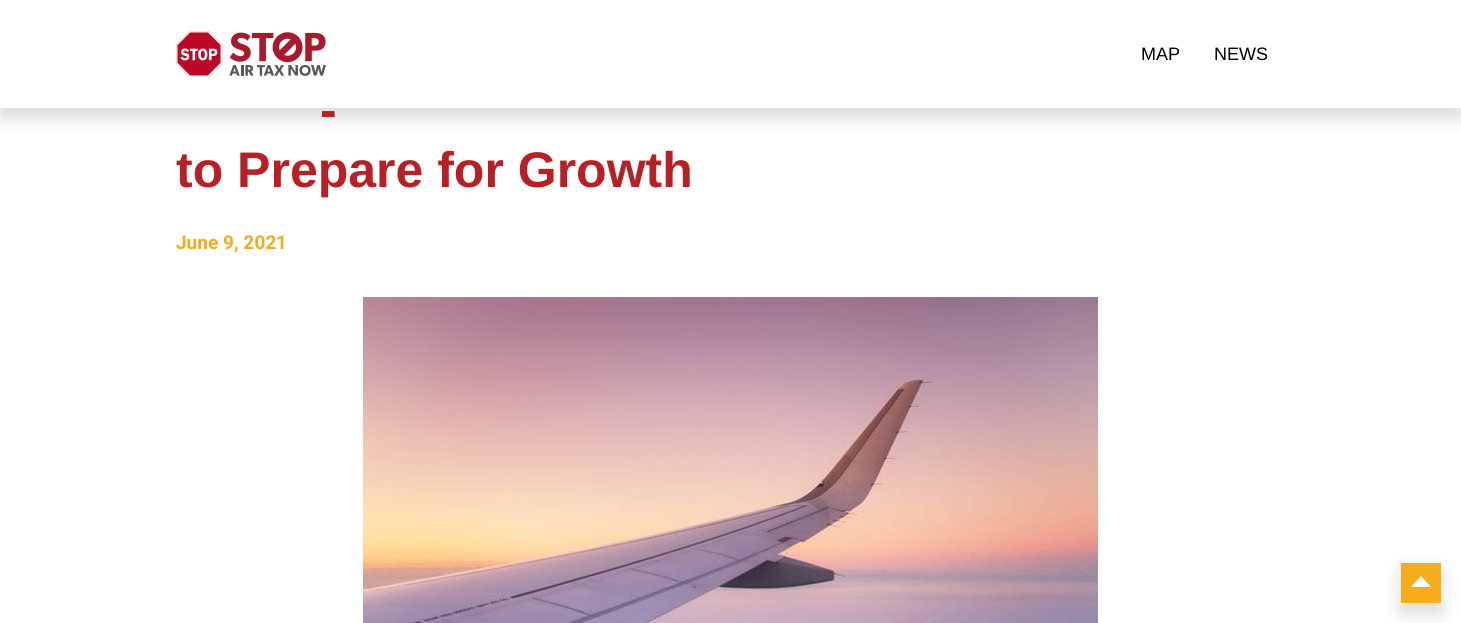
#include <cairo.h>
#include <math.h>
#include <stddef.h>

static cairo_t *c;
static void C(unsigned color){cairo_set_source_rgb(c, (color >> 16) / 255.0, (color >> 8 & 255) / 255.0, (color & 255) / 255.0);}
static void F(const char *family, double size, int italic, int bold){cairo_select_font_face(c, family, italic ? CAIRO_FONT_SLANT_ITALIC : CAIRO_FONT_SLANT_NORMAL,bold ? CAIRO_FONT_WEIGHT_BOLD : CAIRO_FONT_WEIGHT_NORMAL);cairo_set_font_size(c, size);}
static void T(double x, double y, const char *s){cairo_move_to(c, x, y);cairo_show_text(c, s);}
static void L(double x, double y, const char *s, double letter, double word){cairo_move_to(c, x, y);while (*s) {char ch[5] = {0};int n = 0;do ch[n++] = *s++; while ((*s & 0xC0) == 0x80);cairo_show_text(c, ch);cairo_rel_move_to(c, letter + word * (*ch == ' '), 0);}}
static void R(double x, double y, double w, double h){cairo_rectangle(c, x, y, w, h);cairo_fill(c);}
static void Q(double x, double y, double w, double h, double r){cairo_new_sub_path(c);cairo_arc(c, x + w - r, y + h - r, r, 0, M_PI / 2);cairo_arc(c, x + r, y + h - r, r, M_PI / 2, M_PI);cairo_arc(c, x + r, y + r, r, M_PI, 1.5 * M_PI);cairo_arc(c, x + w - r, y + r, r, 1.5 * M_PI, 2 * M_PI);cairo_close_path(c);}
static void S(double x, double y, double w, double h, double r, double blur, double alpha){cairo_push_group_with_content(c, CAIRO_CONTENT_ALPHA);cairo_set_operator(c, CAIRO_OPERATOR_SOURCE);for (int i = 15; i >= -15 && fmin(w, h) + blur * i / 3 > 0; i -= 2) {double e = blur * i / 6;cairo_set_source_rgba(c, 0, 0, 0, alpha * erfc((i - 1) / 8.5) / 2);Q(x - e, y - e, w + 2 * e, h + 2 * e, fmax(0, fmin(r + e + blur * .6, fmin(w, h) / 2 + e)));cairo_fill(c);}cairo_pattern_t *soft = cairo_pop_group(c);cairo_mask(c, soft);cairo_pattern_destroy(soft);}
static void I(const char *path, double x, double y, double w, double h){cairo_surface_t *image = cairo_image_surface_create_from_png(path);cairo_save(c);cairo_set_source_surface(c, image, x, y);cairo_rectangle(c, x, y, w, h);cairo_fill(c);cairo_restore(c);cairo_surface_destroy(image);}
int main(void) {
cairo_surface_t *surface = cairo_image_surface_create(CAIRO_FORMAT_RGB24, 1461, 623);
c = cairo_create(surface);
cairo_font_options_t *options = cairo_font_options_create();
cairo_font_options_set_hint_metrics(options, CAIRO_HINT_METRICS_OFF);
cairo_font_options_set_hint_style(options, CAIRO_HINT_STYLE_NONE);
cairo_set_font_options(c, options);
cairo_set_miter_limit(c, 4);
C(0xffffff);
cairo_paint(c);
C(0x000000);
S(0,10,1461,108,0,9.5,.15);
C(0xffffff);
R(0,0,1461,108);
I("1.png",176,31,150,46);
F("Liberation Sans",18,0,0);
C(0x000000);
T(1141,60,"MAP");
T(1214,60,"NEWS");
F("Liberation Sans",50,0,1);
C(0xb72126);
L(320,127,"-",0,-1);
T(176,187,"to Prepare for Growth");
F("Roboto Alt",19,0,1);
C(0xf1aa1c);
T(176,249,"June 9, 2021");
I("2.png",363,297,735,326);
cairo_save(c);
cairo_set_fill_rule(c,CAIRO_FILL_RULE_EVEN_ODD);
cairo_new_path(c);
cairo_move_to(c,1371,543);
cairo_line_to(c,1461,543);
cairo_line_to(c,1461,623);
cairo_line_to(c,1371,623);
cairo_close_path(c);
cairo_move_to(c,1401,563);
cairo_line_to(c,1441,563);
cairo_line_to(c,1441,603);
cairo_line_to(c,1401,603);
cairo_close_path(c);
cairo_clip(c);
C(0x000000);
S(1401,573,40,40,0,9.5,.15);
cairo_restore(c);
C(0xf5ad1c);
cairo_new_path(c);
cairo_move_to(c,1401,563);
cairo_line_to(c,1401,603);
cairo_line_to(c,1441,603);
cairo_line_to(c,1441,563);
cairo_close_path(c);
cairo_move_to(c,1411,587);
cairo_line_to(c,1421,576);
cairo_line_to(c,1431,587);
cairo_close_path(c);
cairo_fill(c);
cairo_surface_write_to_png(surface, "o.png");
cairo_font_options_destroy(options);
cairo_destroy(c);
cairo_surface_destroy(surface);
return 0;
}
